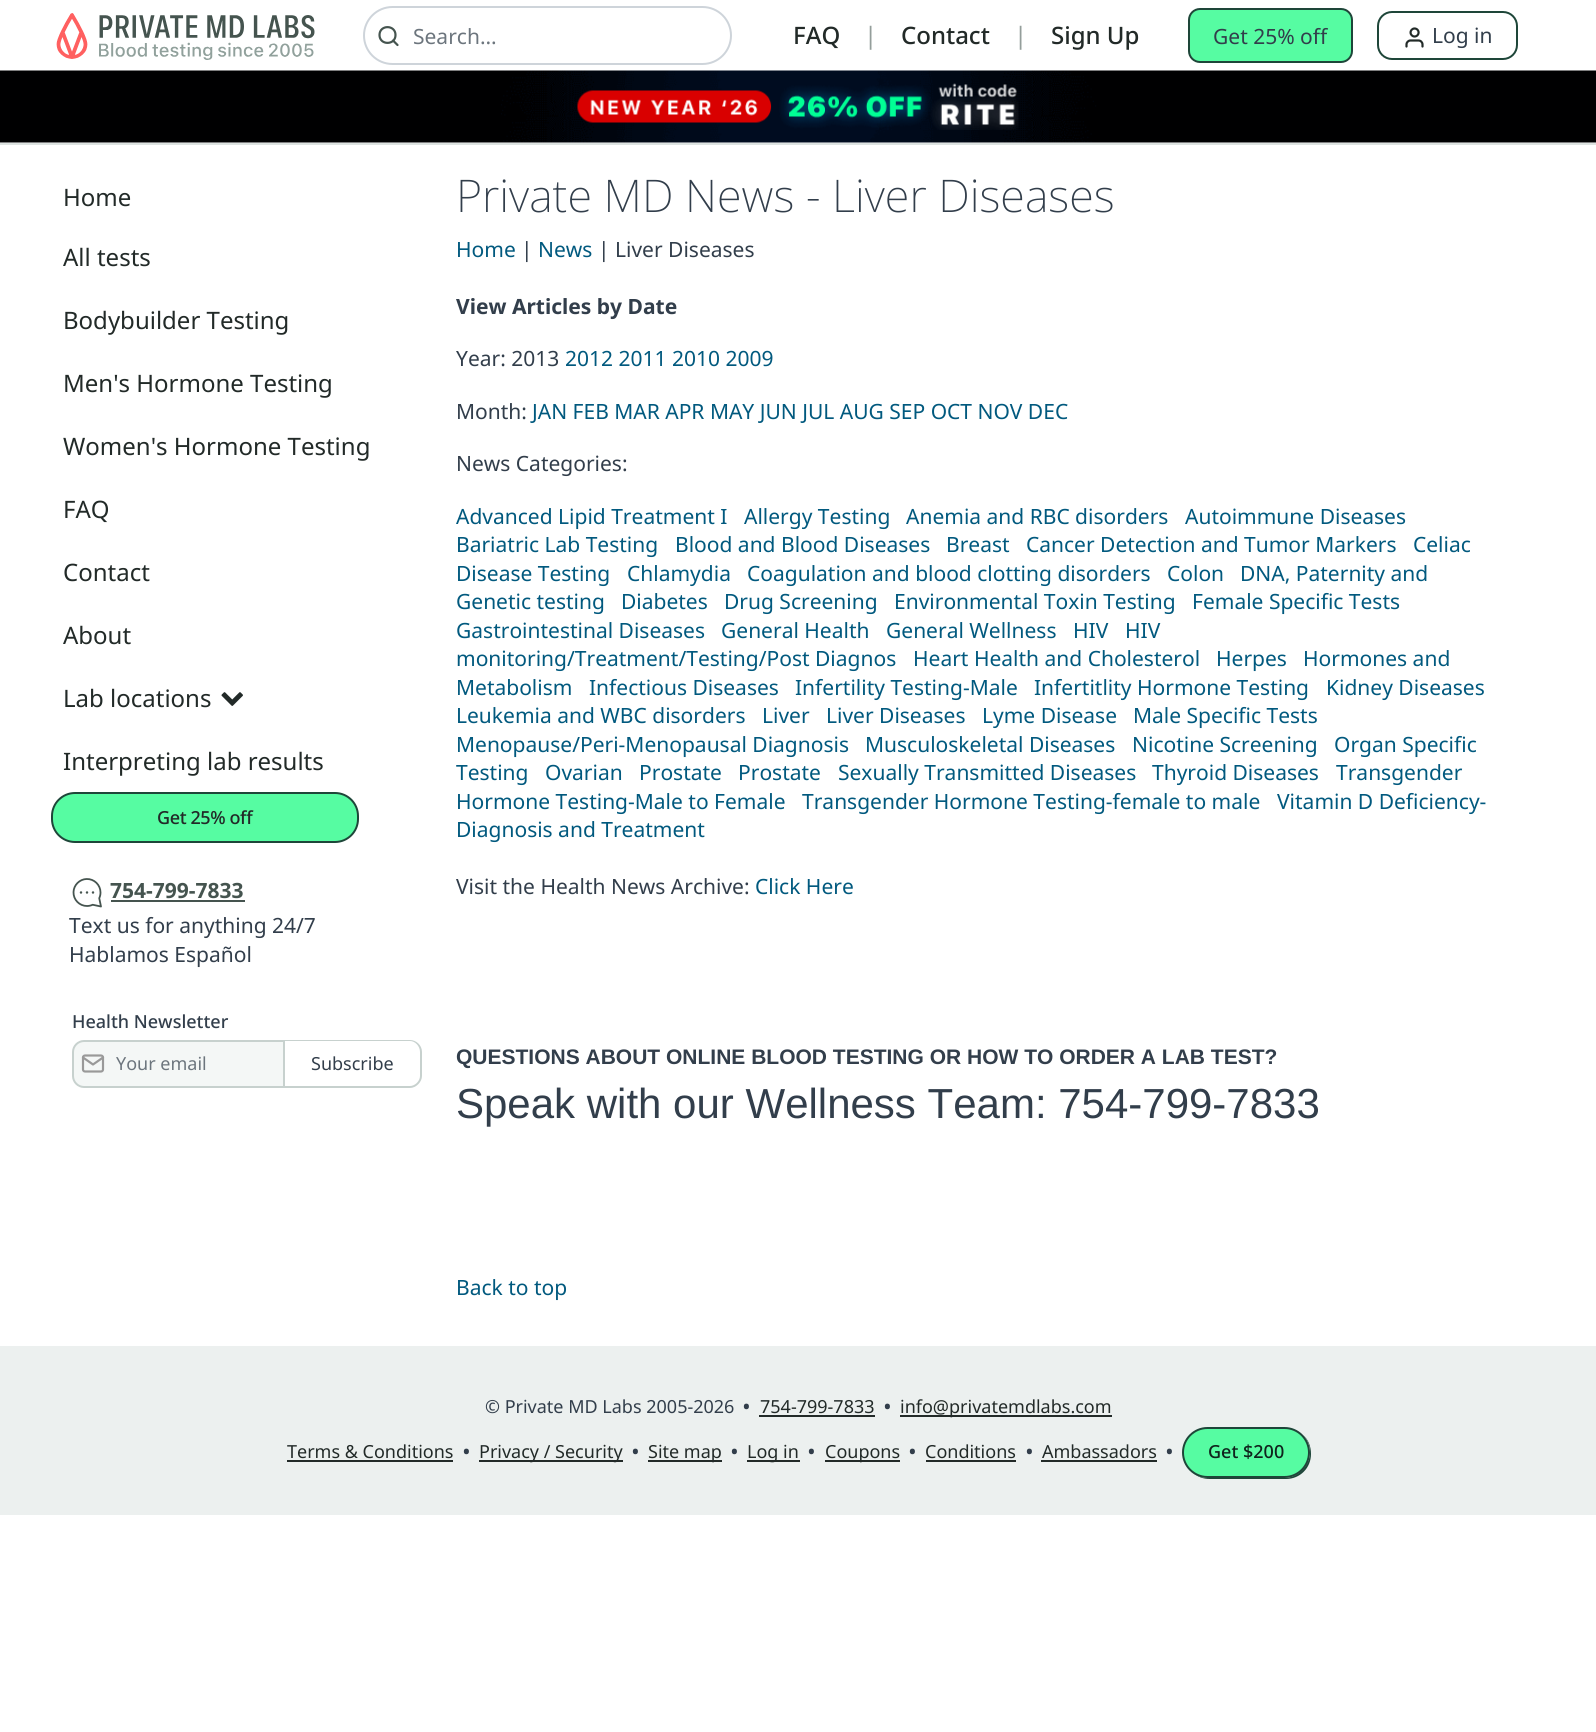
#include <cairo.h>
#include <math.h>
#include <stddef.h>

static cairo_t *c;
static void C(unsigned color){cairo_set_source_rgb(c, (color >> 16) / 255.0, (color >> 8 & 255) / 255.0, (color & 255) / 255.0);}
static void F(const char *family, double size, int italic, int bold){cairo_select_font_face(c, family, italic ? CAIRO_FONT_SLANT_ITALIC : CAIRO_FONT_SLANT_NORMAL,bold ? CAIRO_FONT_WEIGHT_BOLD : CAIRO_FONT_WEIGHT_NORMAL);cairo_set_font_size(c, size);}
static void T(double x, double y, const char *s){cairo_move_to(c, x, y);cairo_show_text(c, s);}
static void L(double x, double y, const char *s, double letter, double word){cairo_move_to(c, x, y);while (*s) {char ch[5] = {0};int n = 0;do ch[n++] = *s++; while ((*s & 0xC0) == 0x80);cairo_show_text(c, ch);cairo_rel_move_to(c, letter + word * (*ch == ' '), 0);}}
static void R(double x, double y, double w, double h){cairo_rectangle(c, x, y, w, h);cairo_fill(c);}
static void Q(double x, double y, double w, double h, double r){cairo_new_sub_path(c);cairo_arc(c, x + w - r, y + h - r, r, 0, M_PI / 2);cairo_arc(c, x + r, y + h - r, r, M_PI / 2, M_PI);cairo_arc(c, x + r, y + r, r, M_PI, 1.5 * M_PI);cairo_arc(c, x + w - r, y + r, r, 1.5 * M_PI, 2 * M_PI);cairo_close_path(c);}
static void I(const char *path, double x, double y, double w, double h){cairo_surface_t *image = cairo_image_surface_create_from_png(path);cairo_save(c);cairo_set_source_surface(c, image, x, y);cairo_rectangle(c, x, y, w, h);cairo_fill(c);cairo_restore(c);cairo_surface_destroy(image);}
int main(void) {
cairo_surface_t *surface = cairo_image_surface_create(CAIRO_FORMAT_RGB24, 1596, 1732);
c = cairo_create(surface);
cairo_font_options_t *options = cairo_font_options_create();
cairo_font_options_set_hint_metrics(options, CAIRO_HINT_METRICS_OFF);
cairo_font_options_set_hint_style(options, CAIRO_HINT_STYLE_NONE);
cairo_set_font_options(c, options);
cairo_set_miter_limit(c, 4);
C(0xffffff);
cairo_paint(c);
C(0xdde3e1);
R(0,143,1596,2);
I("1.png",56,13,259,47);
cairo_new_path(c);
cairo_move_to(c,397.5,45);
cairo_line_to(c,393,40.5);
cairo_move_to(c,395.5,35);
cairo_curve_to(c,395.5,45.5,379.5,45.5,379.5,35);
cairo_curve_to(c,379.5,24.5,395.5,24.5,395.5,35);
cairo_close_path(c);
C(0x45544f);
cairo_set_line_width(c,2.2);
cairo_set_line_cap(c,CAIRO_LINE_CAP_ROUND);
cairo_set_line_join(c,CAIRO_LINE_JOIN_ROUND);
cairo_stroke(c);
Q(364,7,367,57,28.5);
C(0xced4da);
cairo_set_line_width(c,2);
cairo_set_line_cap(c,CAIRO_LINE_CAP_BUTT);
cairo_set_line_join(c,CAIRO_LINE_JOIN_MITER);
cairo_stroke(c);
F("Noto Sans",21,0,0);
C(0x6c757d);
T(413,44,"Search…");
F("Noto Sans Medium",24,0,0);
C(0x222a28);
T(793,44,"FAQ");
F("Noto Sans",24,0,0);
C(0x949e9b);
T(864,44,"|");
F("Noto Sans Medium",24,0,0);
C(0x222a28);
T(901,44,"Contact");
F("Noto Sans",24,0,0);
C(0x949e9b);
T(1014,44,"|");
F("Noto Sans Medium",24,0,0);
C(0x222a28);
T(1051,44,"Sign Up");
C(0x56fca2);
Q(1189,9,163,53,11);
cairo_fill_preserve(c);
C(0x1e4639);
cairo_stroke(c);
F("Noto Sans",21,0,0);
C(0x323e4b);
T(1213,44,"Get 25% off");
Q(1378,12,139,47,14);
C(0x1e4639);
cairo_stroke(c);
I("2.png",1405,27,19,21);
C(0x323e4b);
T(1432,43,"Log in");
I("3.png",0,70,1596,73);
I("4.png",577,83,442,47);
F("Noto Sans",24,0,0);
C(0x222a28);
T(63,206,"Home");
T(63,266,"All tests");
T(63,329,"Bodybuilder Testing");
T(63,392,"Men's Hormone Testing");
T(63,455,"Women's Hormone Testing");
T(63,518,"FAQ");
T(63,581,"Contact");
T(63,644,"About");
T(63,707,"Lab locations");
I("5.png",221,692,22,14);
T(63,770,"Interpreting lab results");
C(0x56fca2);
Q(52,793,306,49,23);
cairo_fill_preserve(c);
C(0x1e4639);
cairo_stroke(c);
F("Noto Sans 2 Medium",18,0,0);
C(0x222a28);
L(157,824,"Get 25% off",-.4,0);
I("6.png",72,878,30,30);
F("Noto Sans",21,0,1);
C(0x45544f);
T(110,898,"754-799-7833");
R(111,900,134,2);
F("Noto Sans",21,0,0);
C(0x323e4b);
T(69,933,"Text us for anything 24/7");
T(69,962,"Hablamos Español");
F("Noto Sans Medium",18,0,0);
T(72,1028,"Health Newsletter");
C(0xf4f7f6);
cairo_new_path(c);
cairo_move_to(c,84,1041);
cairo_line_to(c,284,1041);
cairo_line_to(c,284,1087);
cairo_line_to(c,84,1087);
cairo_curve_to(c,78,1087,73,1082,73,1076);
cairo_line_to(c,73,1052);
cairo_curve_to(c,73,1046,78,1041,84,1041);
cairo_close_path(c);
cairo_fill_preserve(c);
C(0xc7d1ce);
cairo_stroke(c);
I("7.png",81,1054,24,19);
F("Noto Sans",18,0,0);
C(0x6c757d);
T(116,1070,"Your email");
C(0xc7d1ce);
cairo_set_fill_rule(c,CAIRO_FILL_RULE_EVEN_ODD);
cairo_new_path(c);
cairo_move_to(c,285,1040);
cairo_line_to(c,410,1040);
cairo_curve_to(c,416,1040,422,1045,422,1052);
cairo_line_to(c,422,1076);
cairo_curve_to(c,422,1082,416,1088,410,1088);
cairo_line_to(c,285,1088);
cairo_close_path(c);
cairo_move_to(c,285,1041);
cairo_line_to(c,410,1041);
cairo_curve_to(c,415,1041,420,1046,420,1052);
cairo_line_to(c,420,1076);
cairo_curve_to(c,420,1081,415,1086,410,1086);
cairo_line_to(c,285,1086);
cairo_close_path(c);
cairo_fill(c);
C(0x323e4b);
T(311,1070,"Subscribe");
F("Noto Sans ExtraLight",45,0,0);
T(456,212,"Private MD News - Liver Diseases");
F("Noto Sans",21,0,0);
C(0x01597e);
T(456,257,"Home");
C(0x323e4b);
T(521,257,"|");
C(0x01597e);
T(538,257,"News");
C(0x323e4b);
T(598,257,"| Liver Diseases");
F("Noto Sans",21,0,1);
T(456,314,"View Articles by Date");
F("Noto Sans",21,0,0);
T(456,366,"Year: 2013");
C(0x01597e);
T(565,366,"2012 2011 2010 2009");
C(0x323e4b);
T(456,419,"Month:");
C(0x01597e);
T(532,419,"JAN FEB MAR APR MAY JUN JUL AUG SEP OCT NOV DEC");
C(0x323e4b);
T(456,471,"News Categories:");
C(0x01597e);
T(456,524,"Advanced Lipid Treatment I");
T(744,524,"Allergy Testing");
T(906,524,"Anemia and RBC disorders");
T(1185,524,"Autoimmune Diseases");
T(456,552,"Bariatric Lab Testing");
T(675,552,"Blood and Blood Diseases");
T(946,552,"Breast");
T(1026,552,"Cancer Detection and Tumor Markers");
T(1413,552,"Celiac");
T(456,581,"Disease Testing");
T(627,581,"Chlamydia");
T(747,581,"Coagulation and blood clotting disorders");
T(1167,581,"Colon");
T(1240,581,"DNA, Paternity and");
T(456,609,"Genetic testing");
T(621,609,"Diabetes");
T(724,609,"Drug Screening");
T(894,609,"Environmental Toxin Testing");
T(1192,609,"Female Specific Tests");
T(456,638,"Gastrointestinal Diseases");
T(721,638,"General Health");
T(886,638,"General Wellness");
T(1073,638,"HIV");
T(1125,638,"HIV");
T(456,666,"monitoring/Treatment/Testing/Post Diagnos");
T(913,666,"Heart Health and Cholesterol");
T(1216,666,"Herpes");
T(1303,666,"Hormones and");
T(456,695,"Metabolism");
T(589,695,"Infectious Diseases");
T(795,695,"Infertility Testing-Male");
T(1034,695,"Infertitlity Hormone Testing");
T(1326,695,"Kidney Diseases");
T(456,723,"Leukemia and WBC disorders");
T(762,723,"Liver");
T(826,723,"Liver Diseases");
T(982,723,"Lyme Disease");
T(1133,723,"Male Specific Tests");
T(456,752,"Menopause/Peri-Menopausal Diagnosis");
T(865,752,"Musculoskeletal Diseases");
T(1132,752,"Nicotine Screening");
T(1334,752,"Organ Specific");
T(456,780,"Testing");
T(545,780,"Ovarian");
T(639,780,"Prostate");
T(738,780,"Prostate");
T(838,780,"Sexually Transmitted Diseases");
T(1152,780,"Thyroid Diseases");
T(1336,780,"Transgender");
T(456,809,"Hormone Testing-Male to Female");
T(802,809,"Transgender Hormone Testing-female to male");
T(1277,809,"Vitamin D Deficiency-");
T(456,837,"Diagnosis and Treatment");
C(0x323e4b);
T(456,894,"Visit the Health News Archive:");
C(0x01597e);
T(755,894,"Click Here");
F("Liberation Sans",21,0,1);
C(0x323e4b);
T(456,1064,"QUESTIONS ABOUT ONLINE BLOOD TESTING OR HOW TO ORDER A LAB TEST?");
F("Liberation Sans",42,0,0);
T(456,1118,"Speak with our Wellness Team: 754-799-7833");
F("Noto Sans",21,0,0);
C(0x01597e);
T(456,1295,"Back to top");
C(0xecf0ef);
R(0,1346,1596,169);
F("Noto Sans",18,0,0);
C(0x323e4b);
T(485,1413,"© Private MD Labs 2005-2026");
F("Noto Sans",18,0,1);
T(743,1413,"•");
F("Noto Sans",18,0,0);
C(0x222a28);
T(760,1413,"754-799-7833");
R(759,1415,116,2);
F("Noto Sans",18,0,1);
C(0x323e4b);
T(884,1413,"•");
C(0x222a28);
R(900,1415,212,2);
F("Noto Sans",18,0,0);
T(900,1413,"info@privatemdlabs.com");
T(287,1458,"Terms & Conditions");
R(287,1460,166,2);
F("Noto Sans",18,0,1);
C(0x323e4b);
T(463,1458,"•");
C(0x222a28);
R(479,1460,144,2);
F("Noto Sans",18,0,0);
T(479,1458,"Privacy / Security");
F("Noto Sans",18,0,1);
C(0x323e4b);
T(632,1458,"•");
C(0x222a28);
R(648,1460,74,2);
F("Noto Sans",18,0,0);
T(648,1458,"Site map");
F("Noto Sans",18,0,1);
C(0x323e4b);
T(731,1458,"•");
C(0x222a28);
R(747,1460,53,2);
F("Noto Sans",18,0,0);
T(747,1458,"Log in");
F("Noto Sans",18,0,1);
C(0x323e4b);
T(808,1458,"•");
C(0x222a28);
R(825,1460,75,2);
F("Noto Sans",18,0,0);
T(825,1458,"Coupons");
F("Noto Sans",18,0,1);
C(0x323e4b);
T(909,1458,"•");
F("Noto Sans",18,0,0);
C(0x222a28);
T(925,1458,"Conditions");
R(926,1460,90,2);
F("Noto Sans",18,0,1);
C(0x323e4b);
T(1026,1458,"•");
F("Noto Sans",18,0,0);
C(0x222a28);
T(1042,1458,"Ambassadors");
R(1041,1460,116,2);
F("Noto Sans",18,0,1);
C(0x323e4b);
T(1166,1458,"•");
C(0x1e4639);
cairo_set_fill_rule(c,CAIRO_FILL_RULE_WINDING);
cairo_new_path(c);
cairo_move_to(c,1193,1473);
cairo_curve_to(c,1198,1477,1203,1479,1210,1479);
cairo_line_to(c,1286,1479);
cairo_curve_to(c,1300,1479,1311,1468,1311,1454);
cairo_curve_to(c,1311,1446,1308,1439,1303,1435);
cairo_curve_to(c,1307,1439,1310,1445,1310,1452);
cairo_curve_to(c,1310,1466,1298,1478,1284,1478);
cairo_line_to(c,1208,1478);
cairo_curve_to(c,1202,1478,1197,1476,1193,1473);
cairo_close_path(c);
cairo_fill(c);
C(0x56fca2);
Q(1183,1428,126,49,24.5);
cairo_fill_preserve(c);
C(0x1e4639);
cairo_stroke(c);
F("Noto Sans Medium",18,0,0);
C(0x0f241d);
T(1208,1458,"Get $200");
cairo_surface_write_to_png(surface, "o.png");
cairo_font_options_destroy(options);
cairo_destroy(c);
cairo_surface_destroy(surface);
return 0;
}
